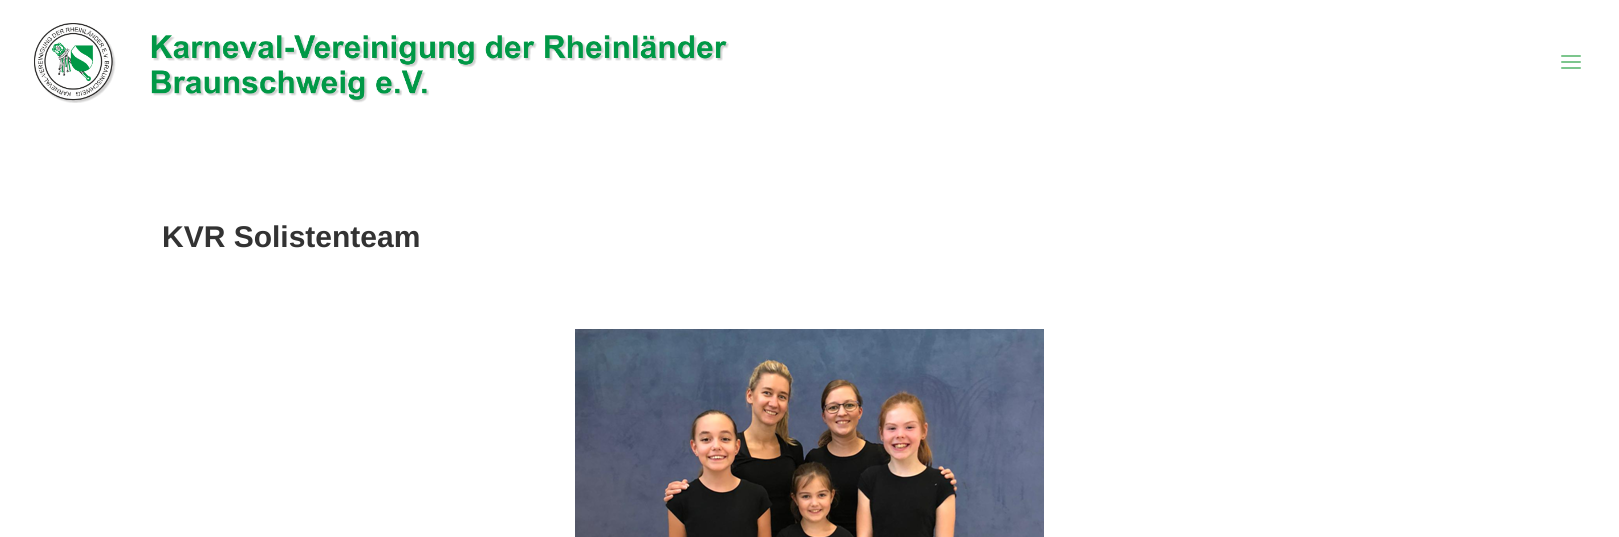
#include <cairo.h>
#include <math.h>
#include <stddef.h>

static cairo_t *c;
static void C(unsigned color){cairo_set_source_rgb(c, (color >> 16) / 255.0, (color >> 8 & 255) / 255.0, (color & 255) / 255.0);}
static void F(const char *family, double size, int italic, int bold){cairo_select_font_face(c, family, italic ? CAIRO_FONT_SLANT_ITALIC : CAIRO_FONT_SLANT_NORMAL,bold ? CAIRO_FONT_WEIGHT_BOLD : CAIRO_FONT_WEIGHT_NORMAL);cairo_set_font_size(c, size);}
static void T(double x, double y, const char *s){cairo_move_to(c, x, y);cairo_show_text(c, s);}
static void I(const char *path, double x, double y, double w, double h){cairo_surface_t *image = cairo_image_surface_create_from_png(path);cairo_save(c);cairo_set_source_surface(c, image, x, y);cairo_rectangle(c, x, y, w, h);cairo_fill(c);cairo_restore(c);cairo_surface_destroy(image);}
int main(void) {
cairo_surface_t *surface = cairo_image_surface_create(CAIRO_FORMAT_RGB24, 1619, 537);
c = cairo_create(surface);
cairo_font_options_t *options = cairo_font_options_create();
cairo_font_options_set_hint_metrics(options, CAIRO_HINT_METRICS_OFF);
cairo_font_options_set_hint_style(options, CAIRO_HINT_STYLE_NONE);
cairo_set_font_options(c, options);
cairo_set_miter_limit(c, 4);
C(0xffffff);
cairo_paint(c);
I("1.png",34,23,695,80);
I("2.png",1561,55,20,14);
F("Liberation Sans",30,0,1);
C(0x333333);
T(162,247,"KVR Solistenteam");
I("3.png",575,329,469,208);
cairo_surface_write_to_png(surface, "o.png");
cairo_font_options_destroy(options);
cairo_destroy(c);
cairo_surface_destroy(surface);
return 0;
}
